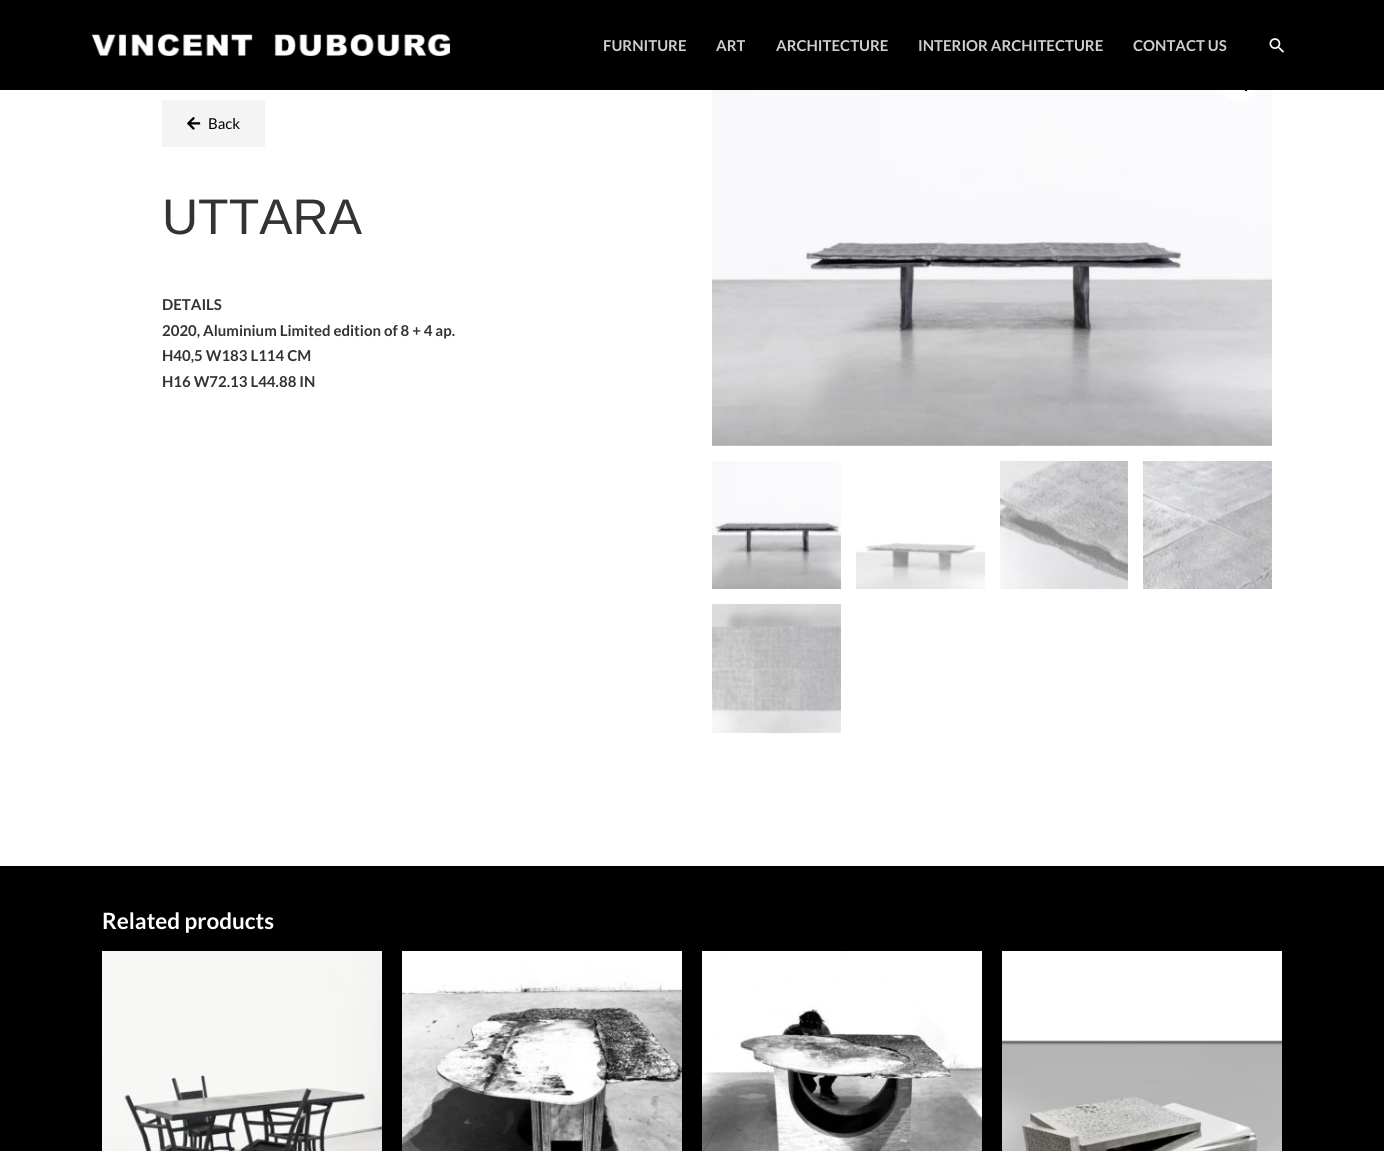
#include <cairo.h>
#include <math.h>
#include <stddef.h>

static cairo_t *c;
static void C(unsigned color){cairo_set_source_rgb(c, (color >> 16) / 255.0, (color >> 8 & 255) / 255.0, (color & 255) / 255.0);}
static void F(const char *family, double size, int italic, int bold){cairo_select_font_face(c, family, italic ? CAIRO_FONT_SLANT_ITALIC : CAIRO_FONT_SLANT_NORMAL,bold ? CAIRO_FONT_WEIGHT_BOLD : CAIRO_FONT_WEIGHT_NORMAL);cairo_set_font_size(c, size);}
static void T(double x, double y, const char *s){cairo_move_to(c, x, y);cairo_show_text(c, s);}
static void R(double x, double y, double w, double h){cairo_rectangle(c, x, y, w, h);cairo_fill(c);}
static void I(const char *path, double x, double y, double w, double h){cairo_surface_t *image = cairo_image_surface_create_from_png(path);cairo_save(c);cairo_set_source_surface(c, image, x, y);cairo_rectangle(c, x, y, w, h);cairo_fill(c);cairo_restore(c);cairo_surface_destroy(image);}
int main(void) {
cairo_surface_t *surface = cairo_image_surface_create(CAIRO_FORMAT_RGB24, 1384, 1151);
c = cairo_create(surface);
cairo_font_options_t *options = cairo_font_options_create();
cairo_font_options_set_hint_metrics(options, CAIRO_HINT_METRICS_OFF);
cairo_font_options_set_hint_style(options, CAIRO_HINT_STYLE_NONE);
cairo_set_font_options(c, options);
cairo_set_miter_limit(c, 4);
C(0x000000);
cairo_paint(c);
C(0xffffff);
R(0,90,1384,776);
I("4.png",712,90,560,356);
cairo_arc(c,1239,83,18,0,2 * M_PI);
cairo_fill(c);
C(0x000000);
cairo_new_path(c);
cairo_move_to(c,1241,85);
cairo_curve_to(c,1242.5,84,1244,86.5,1244.5,87.5);
cairo_curve_to(c,1245.5,88,1248,89.5,1247,91);
cairo_curve_to(c,1245.5,92,1244,89.5,1243.5,88.5);
cairo_curve_to(c,1242.5,88,1240,86.5,1241,85);
cairo_close_path(c);
cairo_fill(c);
R(1221,65,36,25);
I("1.png",92,34,358,22);
F("Lato",15,0,1);
C(0xcecece);
T(603,51,"FURNITURE");
T(716,51,"ART");
T(776,51,"ARCHITECTURE");
T(918,51,"INTERIOR ARCHITECTURE");
T(1133,51,"CONTACT US");
I("2.png",1269,38,15,15);
C(0xf4f4f4);
R(162,100,103,47);
I("3.png",187,117,14,13);
F("Lato",15,0,0);
C(0x000000);
T(208,129,"Back");
F("Liberation Sans",50,0,0);
C(0x333333);
T(162,234,"UTTARA");
F("Lato",15,0,1);
T(162,310,"DETAILS");
T(162,336,"2020, Aluminium Limited edition of 8 + 4 ap.");
T(162,361,"H40,5 W183 L114 CM");
T(162,387,"H16 W72.13 L44.88 IN");
I("5.png",712,461,129,128);
I("6.png",856,542,129,47);
I("7.png",1000,461,128,128);
I("8.png",1143,461,129,128);
I("9.png",712,604,129,129);
F("Lato",22.5,0,1);
C(0xffffff);
T(102,929,"Related products");
I("10.png",102,951,280,200);
I("11.png",402,951,280,200);
I("12.png",702,951,280,200);
I("13.png",1002,951,280,200);
cairo_surface_write_to_png(surface, "o.png");
cairo_font_options_destroy(options);
cairo_destroy(c);
cairo_surface_destroy(surface);
return 0;
}
